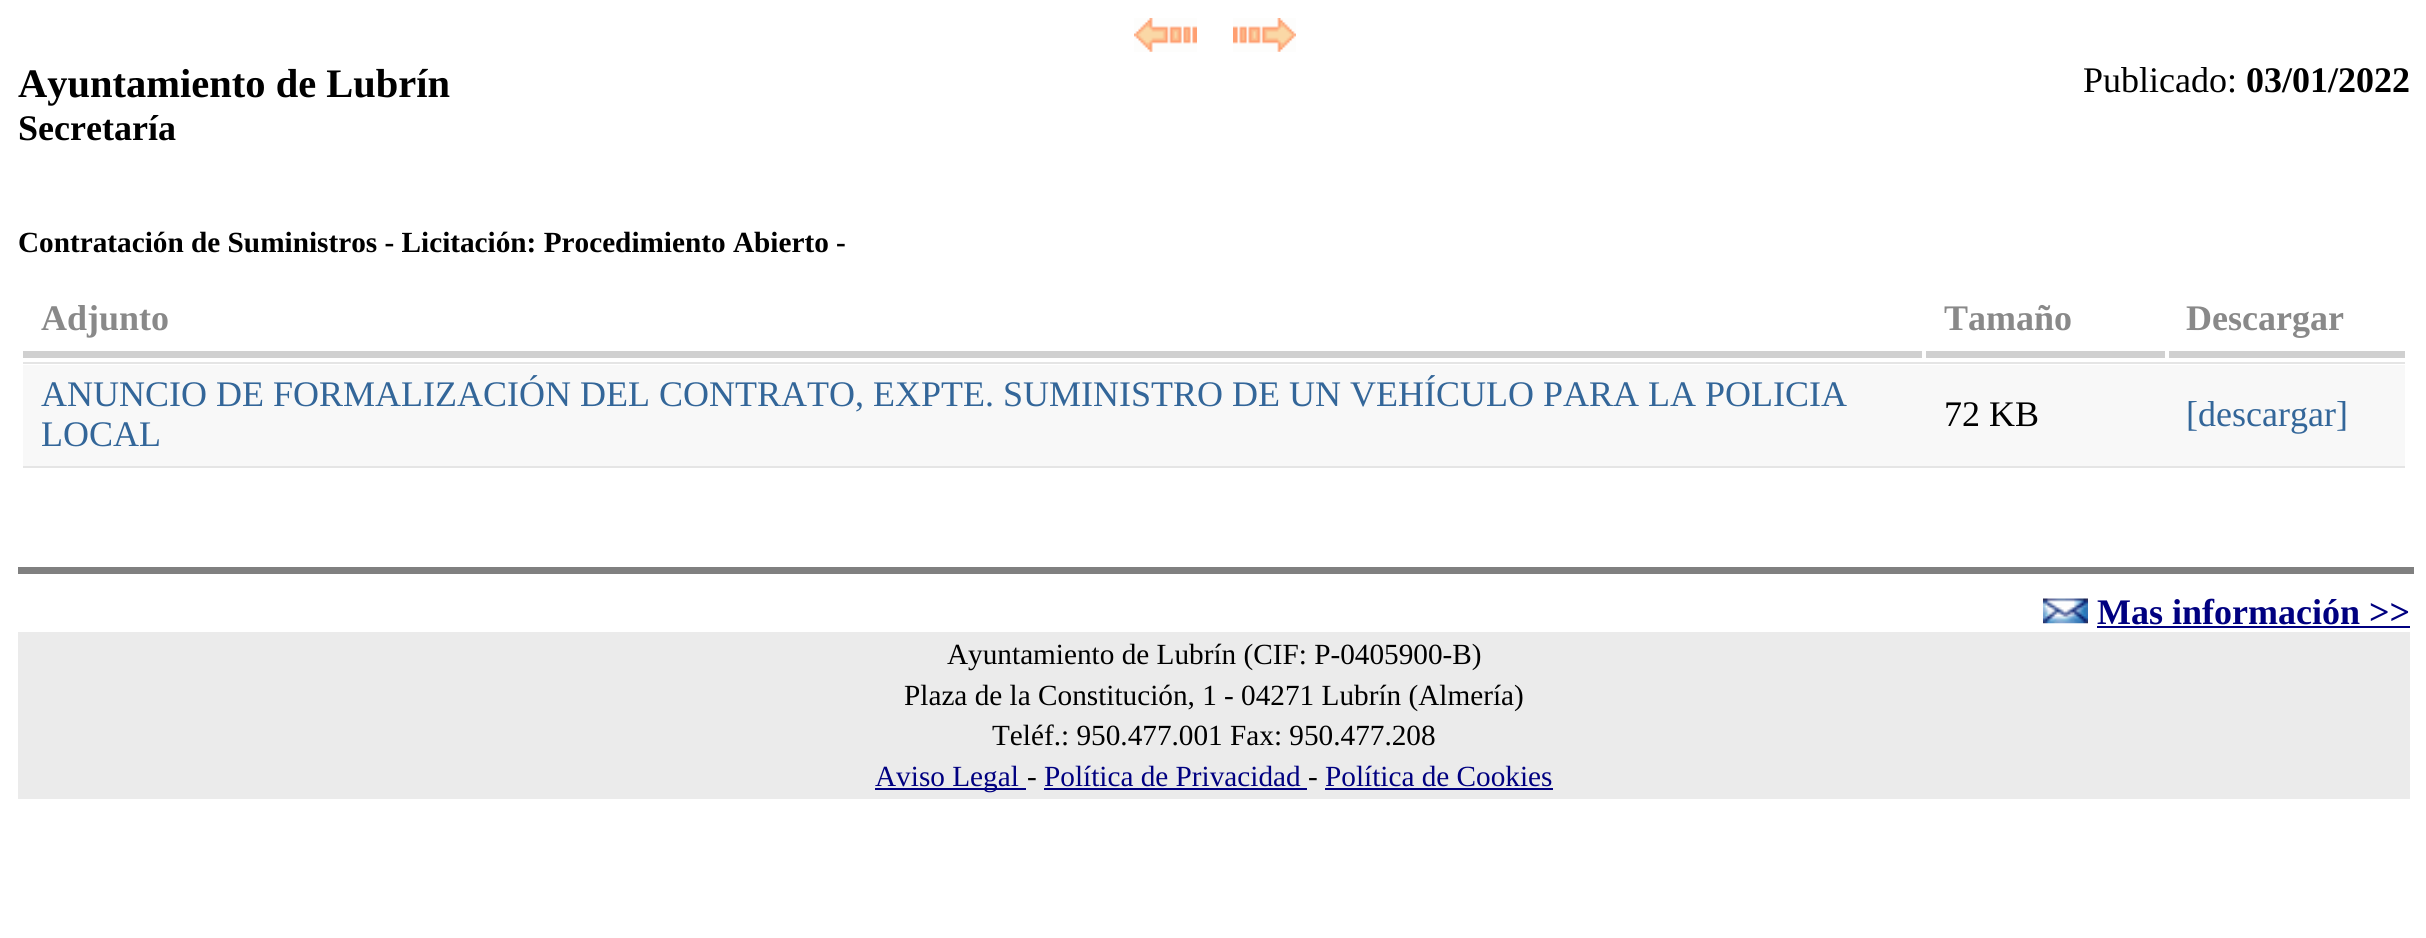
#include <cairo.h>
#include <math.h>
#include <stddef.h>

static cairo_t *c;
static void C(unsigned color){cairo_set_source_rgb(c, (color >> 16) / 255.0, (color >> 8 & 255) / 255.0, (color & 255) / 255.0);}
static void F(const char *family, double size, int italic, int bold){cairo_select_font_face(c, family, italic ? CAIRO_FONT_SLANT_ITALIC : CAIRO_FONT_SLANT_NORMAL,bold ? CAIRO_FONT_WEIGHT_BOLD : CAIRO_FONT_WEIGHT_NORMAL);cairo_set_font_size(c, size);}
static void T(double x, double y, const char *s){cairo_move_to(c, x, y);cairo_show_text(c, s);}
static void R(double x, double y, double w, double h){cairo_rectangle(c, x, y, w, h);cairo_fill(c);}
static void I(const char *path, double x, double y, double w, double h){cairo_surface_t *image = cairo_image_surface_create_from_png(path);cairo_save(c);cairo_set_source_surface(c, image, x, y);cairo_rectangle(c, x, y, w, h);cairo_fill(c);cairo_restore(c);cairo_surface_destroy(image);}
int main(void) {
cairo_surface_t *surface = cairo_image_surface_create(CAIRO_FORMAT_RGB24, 2426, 938);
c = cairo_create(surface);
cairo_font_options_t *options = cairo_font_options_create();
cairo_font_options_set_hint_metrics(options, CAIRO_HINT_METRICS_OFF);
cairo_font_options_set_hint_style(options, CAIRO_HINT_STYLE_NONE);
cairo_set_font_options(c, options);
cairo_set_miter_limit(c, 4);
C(0xffffff);
cairo_paint(c);
I("1.png",1134,18,63,34);
I("2.png",1233,18,63,34);
F("Liberation Serif",40.5,0,1);
C(0x000000);
T(18,97,"Ayuntamiento de Lubrín");
F("Liberation Serif",36,0,1);
T(18,140,"Secretaría");
F("Liberation Serif",36,0,0);
T(2083,92,"Publicado:");
F("Liberation Serif",36,0,1);
T(2246,92,"03/01/2022");
F("Liberation Serif",29.25,0,1);
T(18,252,"Contratación de Suministros - Licitación: Procedimiento Abierto -");
C(0xd0d0d0);
R(23,351,1899,7);
F("Liberation Serif",36,0,1);
C(0x898989);
T(41,330,"Adjunto");
C(0xd0d0d0);
R(1926,351,239,7);
C(0x898989);
T(1944,330,"Tamaño");
C(0xd0d0d0);
R(2169,351,236,7);
C(0x898989);
T(2186,330,"Descargar");
C(0xf8f8f8);
R(23,365,2382,101);
C(0xe5e5e5);
R(23,362,2382,2);
R(23,466,2382,2);
F("Liberation Serif",36,0,0);
C(0x336699);
T(41,406,"ANUNCIO DE FORMALIZACIÓN DEL CONTRATO, EXPTE. SUMINISTRO DE UN VEHÍCULO PARA LA POLICIA");
T(41,446,"LOCAL");
C(0x000000);
T(1944,426,"72 KB");
C(0x336699);
T(2186,426,"[descargar]");
C(0x808080);
R(18,567,2396,7);
I("3.png",2043,598,45,26);
F("Liberation Serif",36,0,1);
C(0x000080);
T(2097,624,"Mas información >>");
R(2097,626,313,2);
C(0xebebeb);
R(18,632,2392,167);
F("Liberation Serif",29.25,0,0);
C(0x000000);
T(947,664,"Ayuntamiento de Lubrín (CIF: P-0405900-B)");
T(904,705,"Plaza de la Constitución, 1 - 04271 Lubrín (Almería)");
T(992,745,"Teléf.: 950.477.001 Fax: 950.477.208");
C(0x000080);
R(875,788,151,2);
T(875,786,"Aviso Legal");
C(0x000000);
T(1027,786,"-");
C(0x000080);
T(1044,786,"Política de Privacidad");
C(0x000000);
T(1308,786,"-");
C(0x000080);
R(1044,788,263,2);
T(1325,786,"Política de Cookies");
R(1325,788,228,2);
cairo_surface_write_to_png(surface, "o.png");
cairo_font_options_destroy(options);
cairo_destroy(c);
cairo_surface_destroy(surface);
return 0;
}
